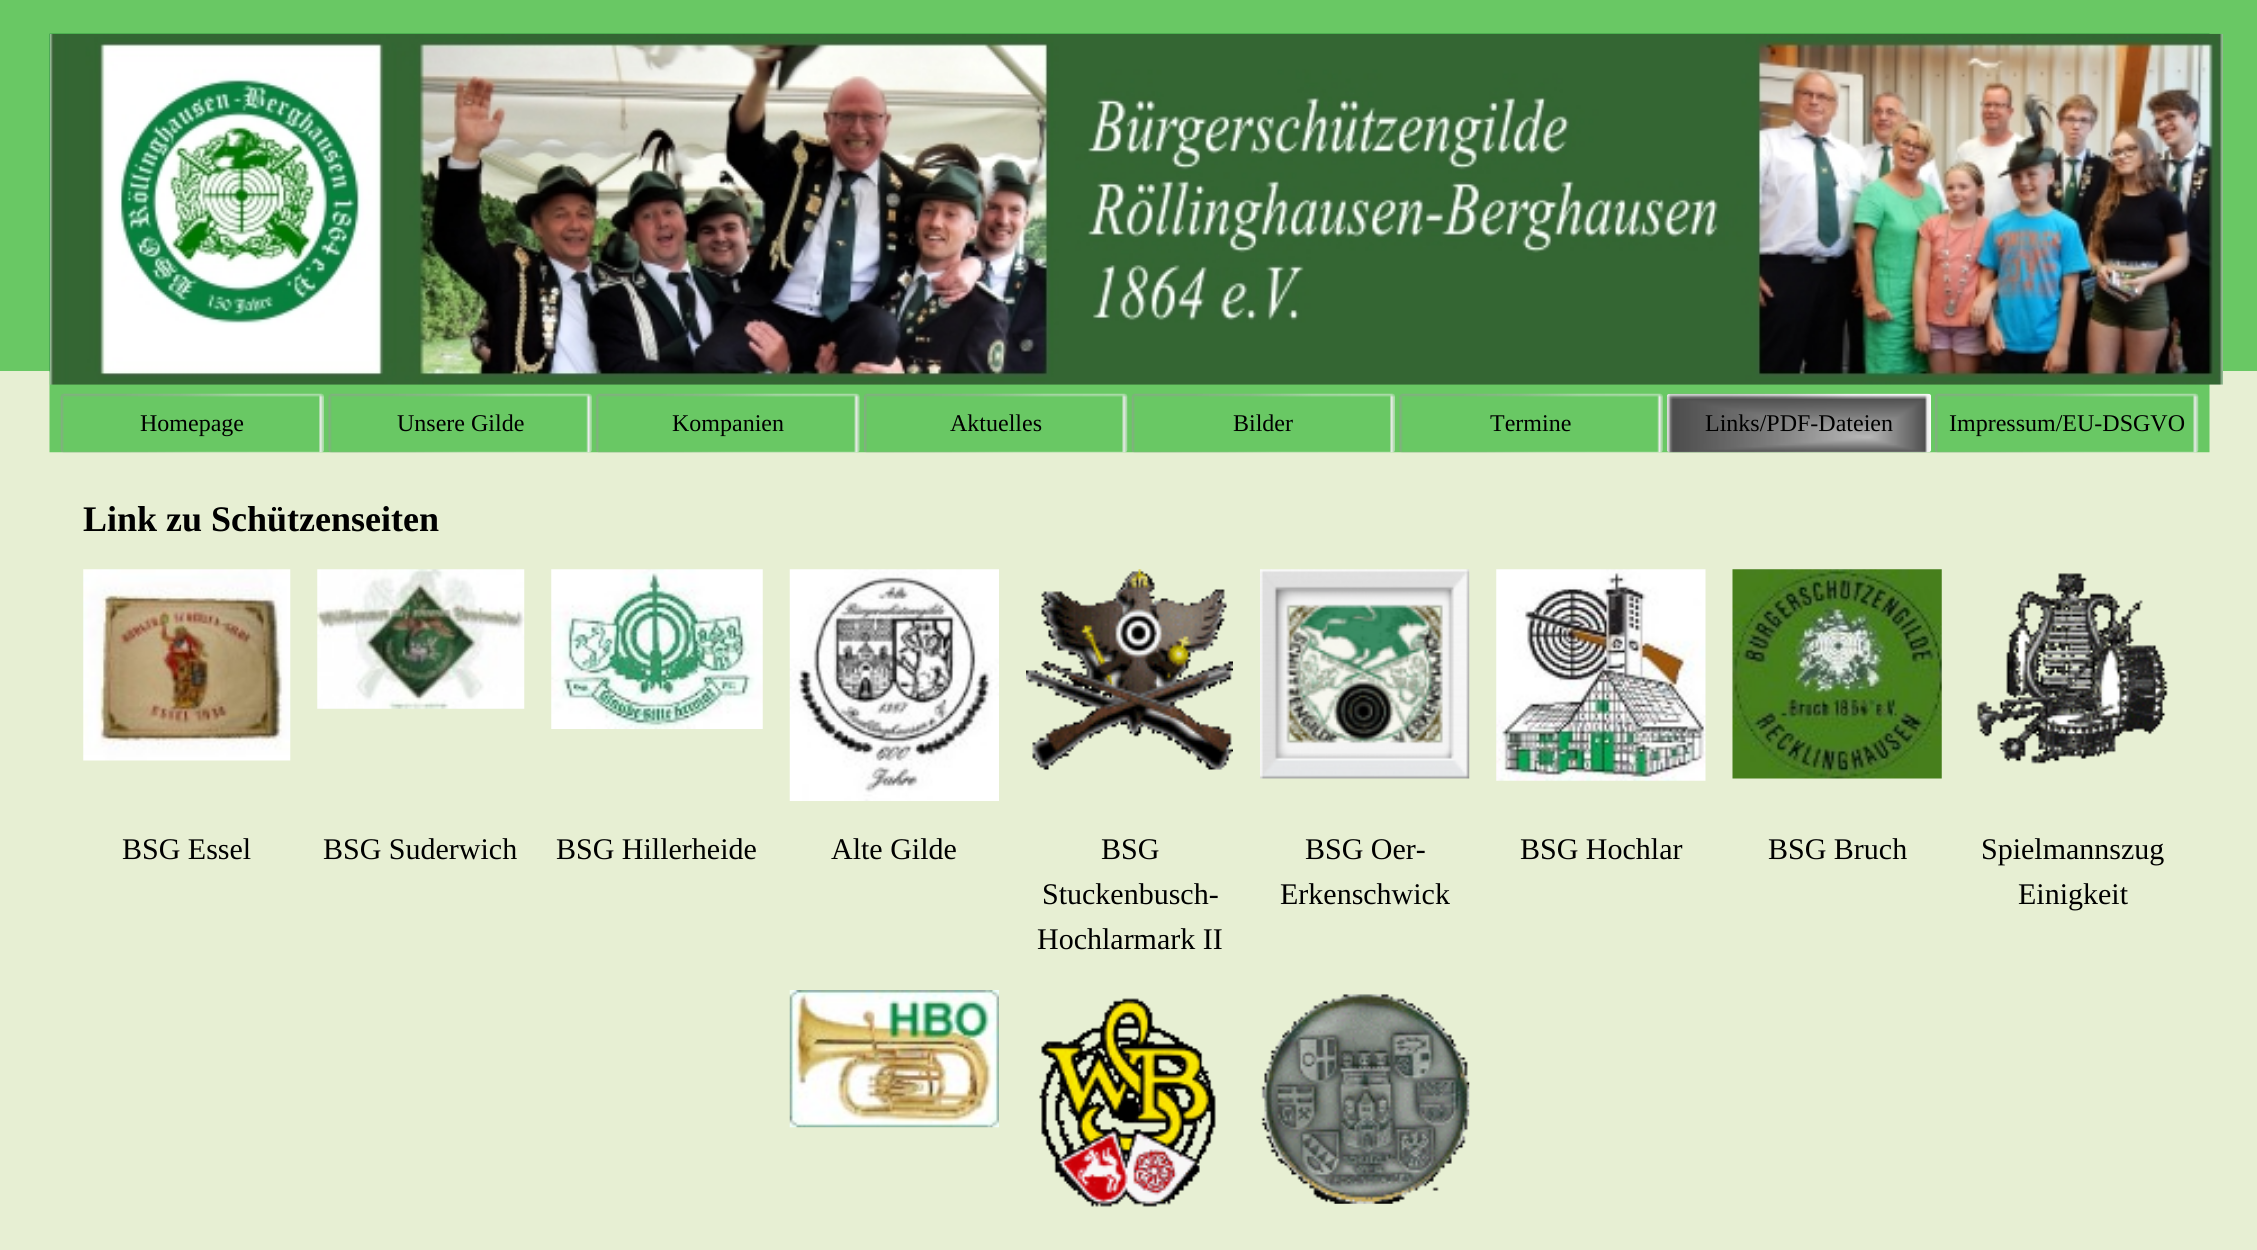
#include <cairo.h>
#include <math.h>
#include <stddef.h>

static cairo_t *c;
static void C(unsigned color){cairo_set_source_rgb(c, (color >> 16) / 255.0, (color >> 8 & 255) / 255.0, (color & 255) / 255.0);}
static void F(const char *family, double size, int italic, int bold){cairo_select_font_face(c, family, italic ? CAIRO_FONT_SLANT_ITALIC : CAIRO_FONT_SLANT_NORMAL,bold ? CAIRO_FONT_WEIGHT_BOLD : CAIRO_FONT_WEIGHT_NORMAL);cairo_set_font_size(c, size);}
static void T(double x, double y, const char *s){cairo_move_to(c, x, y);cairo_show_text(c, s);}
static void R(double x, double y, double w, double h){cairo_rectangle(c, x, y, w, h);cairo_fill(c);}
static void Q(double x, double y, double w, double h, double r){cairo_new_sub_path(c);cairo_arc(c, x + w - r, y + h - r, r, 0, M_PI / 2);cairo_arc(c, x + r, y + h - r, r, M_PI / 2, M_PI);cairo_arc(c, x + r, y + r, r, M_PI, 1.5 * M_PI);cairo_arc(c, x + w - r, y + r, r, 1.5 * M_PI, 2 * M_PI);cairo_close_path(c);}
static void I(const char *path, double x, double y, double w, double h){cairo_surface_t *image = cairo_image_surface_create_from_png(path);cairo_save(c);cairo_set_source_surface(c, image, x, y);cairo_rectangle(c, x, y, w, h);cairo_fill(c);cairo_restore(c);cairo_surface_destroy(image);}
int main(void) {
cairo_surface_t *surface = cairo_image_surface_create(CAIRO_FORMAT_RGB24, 2257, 1250);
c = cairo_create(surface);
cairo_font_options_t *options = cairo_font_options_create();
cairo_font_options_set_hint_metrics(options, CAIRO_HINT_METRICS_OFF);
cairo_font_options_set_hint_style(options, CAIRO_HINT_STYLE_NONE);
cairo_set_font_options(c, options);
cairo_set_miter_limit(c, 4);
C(0xe7efd3);
cairo_paint(c);
C(0x69c864);
R(0,0,2257,371);
I("1.png",49,33,2161,420);
I("2.png",49,33,2174,352);
I("3.png",60,393,264,60);
F("Liberation Serif",24,0,0);
C(0x000000);
T(140,431,"Homepage");
I("4.png",328,393,264,60);
T(397,431,"Unsere Gilde");
I("5.png",596,393,264,60);
T(672,431,"Kompanien");
I("6.png",864,393,264,60);
T(950,431,"Aktuelles");
I("7.png",1131,393,264,60);
T(1233,431,"Bilder");
I("4.png",1399,393,264,60);
T(1490,431,"Termine");
C(0xffffff);
Q(1667,394,264,58,2);
cairo_fill(c);
I("8.png",1667,393,264,60);
C(0x000000);
T(1705,431,"Links/PDF-Dateien");
I("6.png",1935,393,264,60);
T(1949,431,"Impressum/EU-DSGVO");
F("Liberation Serif",36,0,1);
T(83,531,"Link zu Schützenseiten");
I("9.png",83,569,208,192);
I("10.png",317,569,208,140);
I("11.png",551,569,212,160);
I("12.png",789,569,210,232);
I("13.png",1026,569,207,201);
I("14.png",1260,569,210,210);
I("15.png",1496,569,210,212);
I("16.png",1732,569,210,210);
I("17.png",1977,573,191,191);
F("Liberation Serif",30,0,0);
T(122,859,"BSG Essel");
T(323,859,"BSG Suderwich");
T(556,859,"BSG Hillerheide");
T(831,859,"Alte Gilde");
T(1101,859,"BSG");
T(1042,904,"Stuckenbusch-");
T(1037,949,"Hochlarmark II");
T(1305,859,"BSG Oer-");
T(1280,904,"Erkenschwick");
T(1520,859,"BSG Hochlar");
T(1768,859,"BSG Bruch");
T(1981,859,"Spielmannszug");
T(2018,904,"Einigkeit");
I("18.png",789,990,210,138);
I("19.png",1039,998,177,209);
I("20.png",1261,994,209,210);
cairo_surface_write_to_png(surface, "o.png");
cairo_font_options_destroy(options);
cairo_destroy(c);
cairo_surface_destroy(surface);
return 0;
}
